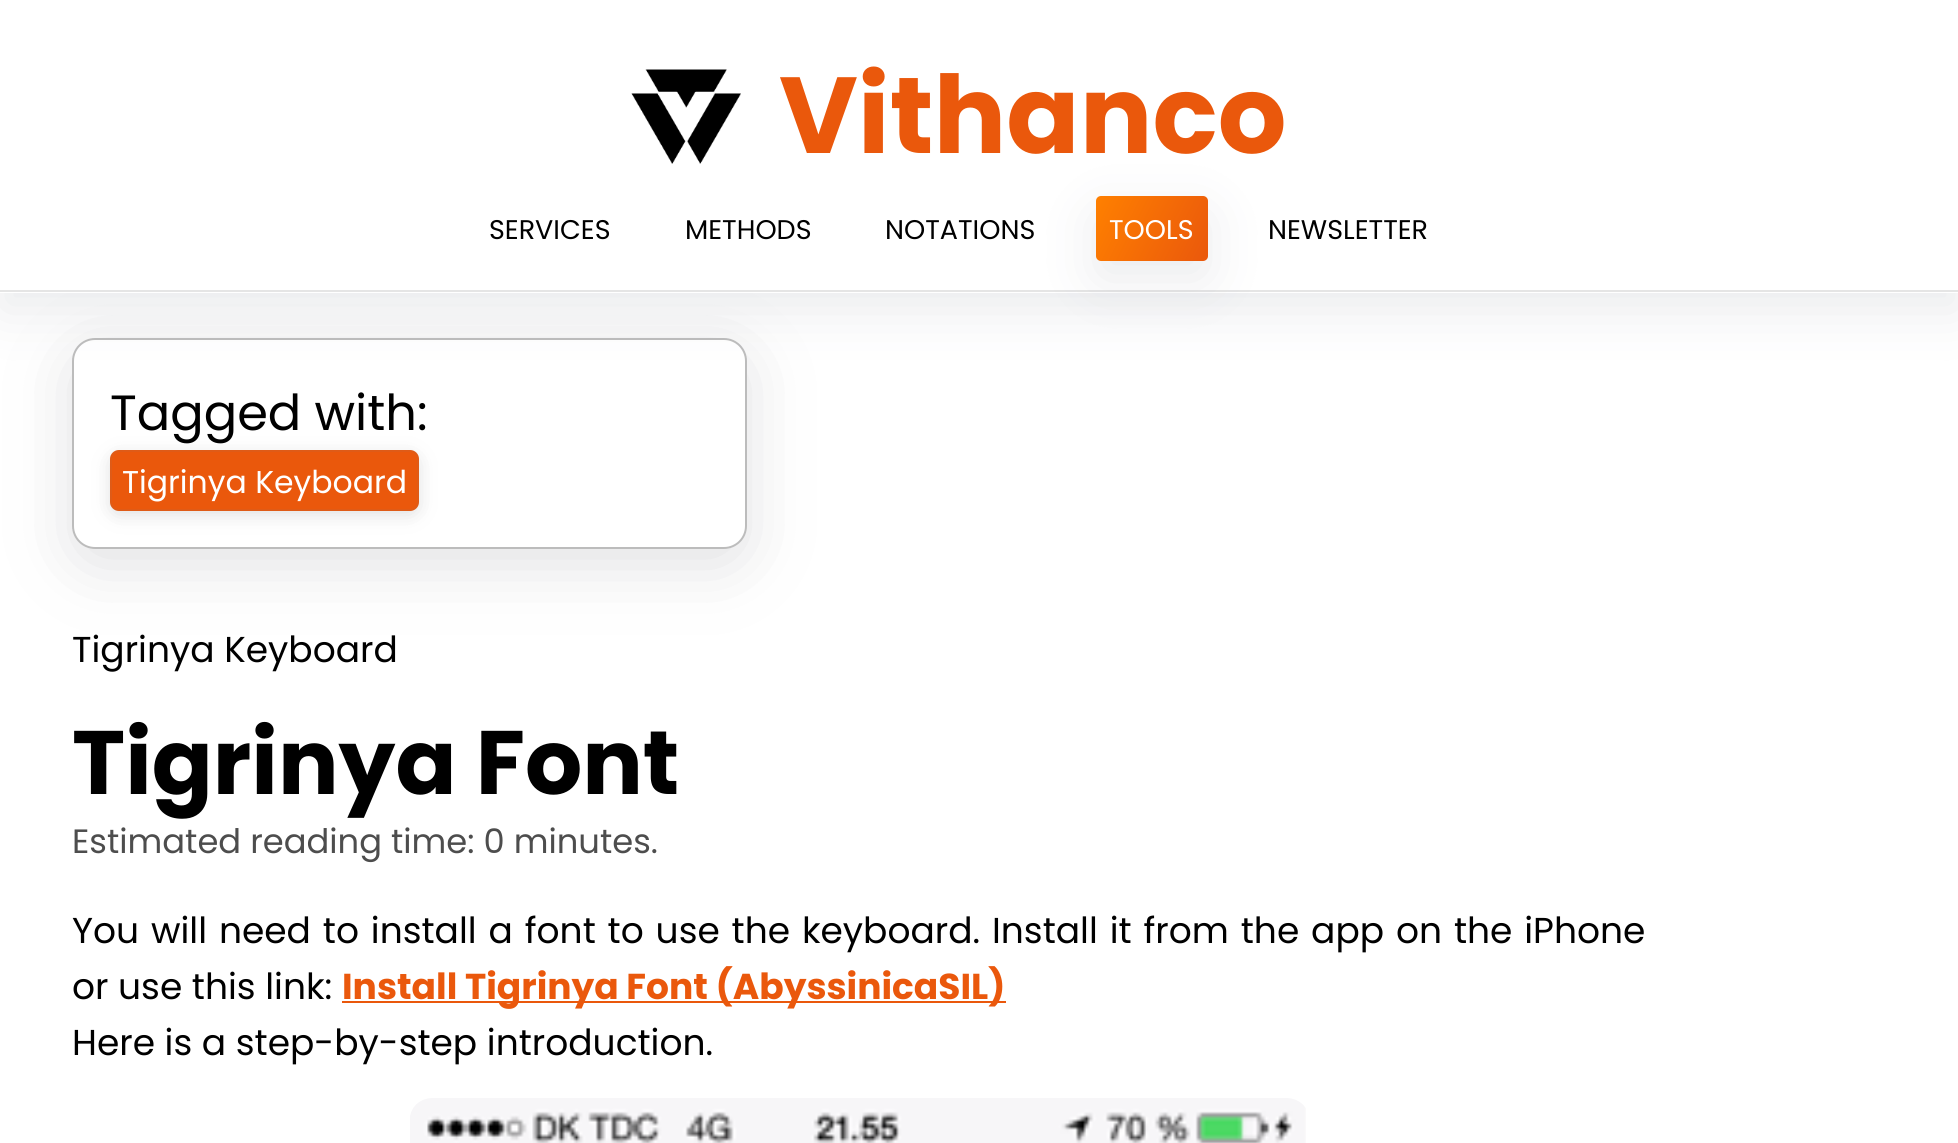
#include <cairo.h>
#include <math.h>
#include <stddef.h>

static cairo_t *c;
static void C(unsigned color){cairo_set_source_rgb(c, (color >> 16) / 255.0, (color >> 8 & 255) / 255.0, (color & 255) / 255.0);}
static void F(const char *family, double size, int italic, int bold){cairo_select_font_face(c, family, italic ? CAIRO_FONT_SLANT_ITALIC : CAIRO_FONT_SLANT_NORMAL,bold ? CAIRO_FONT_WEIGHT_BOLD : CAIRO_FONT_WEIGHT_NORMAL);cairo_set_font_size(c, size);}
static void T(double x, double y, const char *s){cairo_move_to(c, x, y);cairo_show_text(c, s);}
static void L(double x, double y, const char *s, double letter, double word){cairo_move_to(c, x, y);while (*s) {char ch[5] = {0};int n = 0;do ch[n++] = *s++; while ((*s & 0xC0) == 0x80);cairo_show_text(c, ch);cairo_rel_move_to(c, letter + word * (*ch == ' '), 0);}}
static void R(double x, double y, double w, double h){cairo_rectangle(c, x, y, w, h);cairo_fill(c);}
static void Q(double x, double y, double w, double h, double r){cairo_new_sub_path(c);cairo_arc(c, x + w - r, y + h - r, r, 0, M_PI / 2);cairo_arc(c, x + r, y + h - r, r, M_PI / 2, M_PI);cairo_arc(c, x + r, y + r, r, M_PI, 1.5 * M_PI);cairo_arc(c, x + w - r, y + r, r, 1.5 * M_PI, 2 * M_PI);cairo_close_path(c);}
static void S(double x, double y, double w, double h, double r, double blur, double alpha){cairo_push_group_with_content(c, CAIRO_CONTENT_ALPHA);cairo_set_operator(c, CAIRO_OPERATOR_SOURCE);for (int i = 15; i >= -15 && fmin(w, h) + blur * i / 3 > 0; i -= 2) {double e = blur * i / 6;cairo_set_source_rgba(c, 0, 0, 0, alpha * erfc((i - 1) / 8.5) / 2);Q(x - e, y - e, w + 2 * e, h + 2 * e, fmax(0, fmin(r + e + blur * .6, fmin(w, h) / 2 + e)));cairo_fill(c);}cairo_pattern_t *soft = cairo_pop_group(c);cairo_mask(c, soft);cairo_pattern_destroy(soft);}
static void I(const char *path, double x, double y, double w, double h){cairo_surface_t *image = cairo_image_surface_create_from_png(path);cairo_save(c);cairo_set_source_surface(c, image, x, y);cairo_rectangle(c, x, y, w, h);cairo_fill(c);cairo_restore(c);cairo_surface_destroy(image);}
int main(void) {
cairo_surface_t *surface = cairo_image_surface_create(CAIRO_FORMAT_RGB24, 1958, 1143);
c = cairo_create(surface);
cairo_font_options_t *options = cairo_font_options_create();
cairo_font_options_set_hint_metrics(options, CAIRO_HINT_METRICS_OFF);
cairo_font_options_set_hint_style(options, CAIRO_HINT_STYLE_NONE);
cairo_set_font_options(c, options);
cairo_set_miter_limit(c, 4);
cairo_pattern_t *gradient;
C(0xffffff);
cairo_paint(c);
cairo_save(c);
cairo_set_fill_rule(c,CAIRO_FILL_RULE_EVEN_ODD);
cairo_new_path(c);
cairo_move_to(c,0,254);
cairo_line_to(c,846,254);
cairo_line_to(c,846,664);
cairo_line_to(c,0,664);
cairo_close_path(c);
cairo_move_to(c,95,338);
cairo_line_to(c,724,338);
cairo_curve_to(c,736.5,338,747,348.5,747,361);
cairo_line_to(c,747,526);
cairo_curve_to(c,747,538.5,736.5,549,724,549);
cairo_line_to(c,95,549);
cairo_curve_to(c,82.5,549,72,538.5,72,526);
cairo_line_to(c,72,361);
cairo_curve_to(c,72,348.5,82.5,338,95,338);
cairo_close_path(c);
cairo_clip(c);
C(0x64646f);
S(72,353,675,212,23,32.5,.2);
cairo_restore(c);
Q(73,339,673,209,22);
cairo_set_source_rgba(c,0.482,0.482,0.482,0.5);
cairo_stroke(c);
C(0x959da5);
S(0,18,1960,293,0,27,.2);
C(0xffffff);
R(0,0,1958,293);
C(0xe5e5e5);
R(0,290,1958,2);
I("1.png",631,69,110,95);
F("Poppins",108,0,1);
C(0xea580c);
T(779,153,"Vithanco");
F("Poppins",27,0,0);
C(0x000000);
T(489,239,"SERVICES");
T(685,239,"METHODS");
T(885,239,"NOTATIONS");
C(0x959da5);
S(1096,214,112,65,5,27,.2);
gradient = cairo_pattern_create_linear(1210,258,1094,199);
cairo_pattern_add_color_stop_rgba(gradient,0,0.918,0.345,0.047,1);
cairo_pattern_add_color_stop_rgba(gradient,1,1,0.502,0,1);
cairo_set_source(c,gradient);
cairo_pattern_destroy(gradient);
Q(1096,196,112,65,5);
cairo_fill(c);
C(0xffffff);
T(1109,239,"TOOLS");
C(0x000000);
T(1268,239,"NEWSLETTER");
F("Poppins",49.5,0,0);
T(110,430,"Tagged with:");
C(0x636363);
S(110,455,309,60,9,9,.2);
C(0xea580c);
Q(110,450,309,61,9);
cairo_fill(c);
Q(111,451,307,59,8);
cairo_set_source_rgba(c,0.482,0.482,0.482,0.1);
cairo_stroke(c);
F("Poppins",31.5,0,0);
C(0xffffff);
T(122,493,"Tigrinya Keyboard");
F("Poppins",36,0,0);
C(0x000000);
T(72,662,"Tigrinya Keyboard");
F("Poppins",90,0,1);
T(72,794,"Tigrinya Font");
F("Poppins",33.75,0,0);
C(0x4d4d4d);
T(72,853,"Estimated reading time: 0 minutes.");
F("Poppins",36,0,0);
C(0x000000);
L(72,943,"You will need to install a font to use the keyboard. Install it from the app on the iPhone",0,2.25);
T(72,999,"or use this link:");
C(0xea580c);
R(342,1001,664,2);
F("Poppins",36,0,1);
T(342,999,"Install Tigrinya Font (AbyssinicaSIL)");
F("Poppins",36,0,0);
C(0x000000);
T(72,1055,"Here is a step-by-step introduction.");
I("2.png",410,1098,896,45);
cairo_surface_write_to_png(surface, "o.png");
cairo_font_options_destroy(options);
cairo_destroy(c);
cairo_surface_destroy(surface);
return 0;
}
